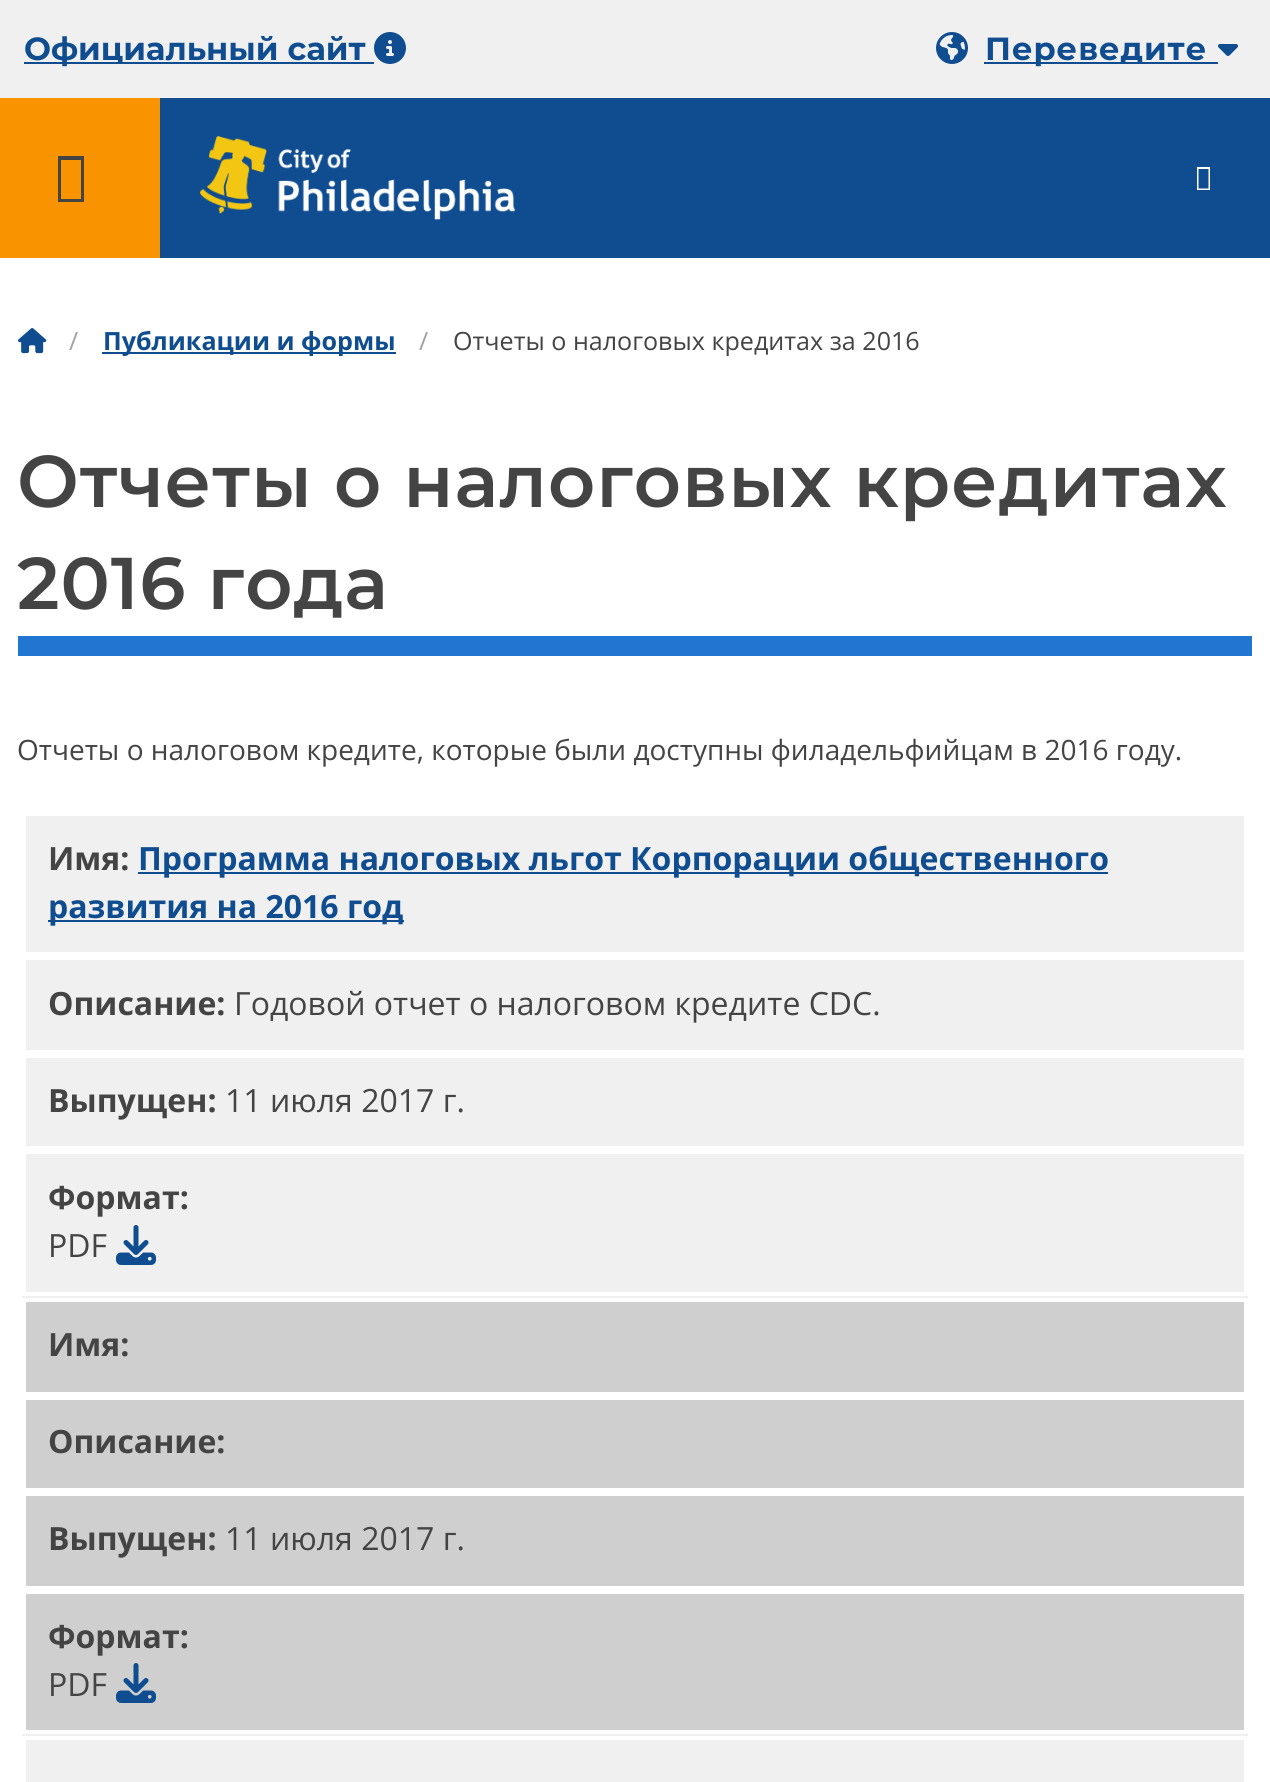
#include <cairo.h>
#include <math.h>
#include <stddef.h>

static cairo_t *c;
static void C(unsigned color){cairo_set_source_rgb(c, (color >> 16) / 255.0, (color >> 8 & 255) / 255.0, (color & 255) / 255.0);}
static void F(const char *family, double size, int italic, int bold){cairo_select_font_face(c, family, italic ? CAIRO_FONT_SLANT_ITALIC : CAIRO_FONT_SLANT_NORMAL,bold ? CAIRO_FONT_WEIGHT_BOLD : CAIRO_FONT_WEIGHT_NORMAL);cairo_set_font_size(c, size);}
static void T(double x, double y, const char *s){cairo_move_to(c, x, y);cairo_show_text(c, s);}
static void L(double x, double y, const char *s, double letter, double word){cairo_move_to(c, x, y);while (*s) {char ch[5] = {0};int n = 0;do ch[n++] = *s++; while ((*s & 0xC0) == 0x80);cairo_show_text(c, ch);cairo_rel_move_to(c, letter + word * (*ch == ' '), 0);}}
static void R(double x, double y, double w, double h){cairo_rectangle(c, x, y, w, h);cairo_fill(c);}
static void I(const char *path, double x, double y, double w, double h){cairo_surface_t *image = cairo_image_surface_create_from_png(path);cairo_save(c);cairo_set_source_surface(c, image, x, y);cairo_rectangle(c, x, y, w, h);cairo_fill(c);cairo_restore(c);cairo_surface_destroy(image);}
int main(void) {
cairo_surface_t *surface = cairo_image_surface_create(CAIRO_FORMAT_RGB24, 1270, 1782);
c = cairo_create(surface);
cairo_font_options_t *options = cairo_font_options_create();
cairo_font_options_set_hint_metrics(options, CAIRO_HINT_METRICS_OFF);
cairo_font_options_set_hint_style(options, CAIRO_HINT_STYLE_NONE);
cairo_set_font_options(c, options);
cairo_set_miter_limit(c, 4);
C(0xffffff);
cairo_paint(c);
C(0x0f4d90);
R(160,98,1110,160);
C(0xf0f0f0);
R(0,0,1270,98);
C(0x0f4d90);
R(24,62,350,2);
F("Montserrat",32,0,1);
T(24,60,"Официальный сайт");
I("1.png",374,32,32,32);
I("2.png",936,32,32,32);
R(984,62,234,2);
L(985,60,"Переведите",.95,0);
I("3.png",1218,44,20,12);
C(0xf99300);
R(0,98,160,160);
C(0x444444);
cairo_new_path(c);
cairo_move_to(c,58,202);
cairo_line_to(c,58,156);
cairo_line_to(c,84,156);
cairo_line_to(c,84,202);
cairo_close_path(c);
cairo_move_to(c,61,199);
cairo_line_to(c,81,199);
cairo_line_to(c,81,160);
cairo_line_to(c,61,160);
cairo_close_path(c);
cairo_fill(c);
I("4.png",200,136,316,84);
C(0xffffff);
cairo_new_path(c);
cairo_move_to(c,1197,190);
cairo_line_to(c,1197,167);
cairo_line_to(c,1210,167);
cairo_line_to(c,1210,190);
cairo_close_path(c);
cairo_move_to(c,1198.5,188.5);
cairo_line_to(c,1208.5,188.5);
cairo_line_to(c,1208.5,169);
cairo_line_to(c,1198.5,169);
cairo_close_path(c);
cairo_fill(c);
I("5.png",18,328,29,26);
F("Open Sans",25.1,0,0);
C(0xa1a1a1);
T(69,350,"/");
C(0x0f4d90);
R(102,352,294,2);
F("Open Sans",25.1,0,1);
T(103,350,"Публикации и формы");
F("Open Sans",25.1,0,0);
C(0xa1a1a1);
T(419,350,"/");
C(0x444444);
T(453,350,"Отчеты о налоговых кредитах за 2016");
C(0x2176d2);
R(18,636,1234,20);
F("Montserrat Thin",73.2,0,0);
C(0x444444);
L(17,507,"Отчеты о налоговых кредитах",.95,0);
L(17,609,"2016 года",.95,0);
F("Open Sans",28,0,0);
T(17,760,"Отчеты о налоговом кредите, которые были доступны филадельфийцам в 2016 году.");
C(0xf0f0f0);
R(26,816,1218,966);
R(18,1296,1234,2);
R(18,1734,1234,2);
C(0xffffff);
R(1248,1296,4,440);
R(18,1296,4,440);
cairo_rectangle(c,24,814,1222,140);
cairo_set_line_width(c,4);
cairo_stroke(c);
F("Open Sans",32,0,1);
C(0x444444);
T(48,870,"Имя:");
C(0x0f4d90);
R(138,872,970,2);
T(138,870,"Программа налоговых льгот Корпорации общественного");
R(48,920,356,2);
T(48,918,"развития на 2016 год");
cairo_rectangle(c,24,958,1222,94);
C(0xffffff);
cairo_stroke(c);
C(0x444444);
T(48,1015,"Описание:");
F("Open Sans",32,0,0);
T(234,1015,"Годовой отчет о налоговом кредите CDC.");
cairo_rectangle(c,24,1056,1222,92);
C(0xffffff);
cairo_stroke(c);
F("Open Sans",32,0,1);
C(0x444444);
T(48,1112,"Выпущен:");
F("Open Sans",32,0,0);
T(225,1112,"11 июля 2017 г.");
cairo_rectangle(c,24,1152,1222,142);
C(0xffffff);
cairo_stroke(c);
F("Open Sans",32,0,1);
C(0x444444);
T(48,1209,"Формат:");
F("Open Sans",32,0,0);
T(48,1257,"PDF");
I("6.png",116,1225,40,40);
C(0xcfcfcf);
R(26,1302,1218,428);
cairo_rectangle(c,24,1300,1222,94);
C(0xffffff);
cairo_stroke(c);
F("Open Sans",32,0,1);
C(0x444444);
T(48,1356,"Имя:");
cairo_rectangle(c,24,1398,1222,92);
C(0xffffff);
cairo_stroke(c);
C(0x444444);
T(48,1453,"Описание:");
cairo_rectangle(c,24,1494,1222,94);
C(0xffffff);
cairo_stroke(c);
C(0x444444);
T(48,1550,"Выпущен:");
F("Open Sans",32,0,0);
T(225,1550,"11 июля 2017 г.");
cairo_rectangle(c,24,1592,1222,140);
C(0xffffff);
cairo_stroke(c);
F("Open Sans",32,0,1);
C(0x444444);
T(48,1648,"Формат:");
F("Open Sans",32,0,0);
T(48,1696,"PDF");
I("7.png",116,1663,40,40);
cairo_rectangle(c,24,1738,1222,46);
C(0xffffff);
cairo_stroke(c);
cairo_surface_write_to_png(surface, "o.png");
cairo_font_options_destroy(options);
cairo_destroy(c);
cairo_surface_destroy(surface);
return 0;
}
